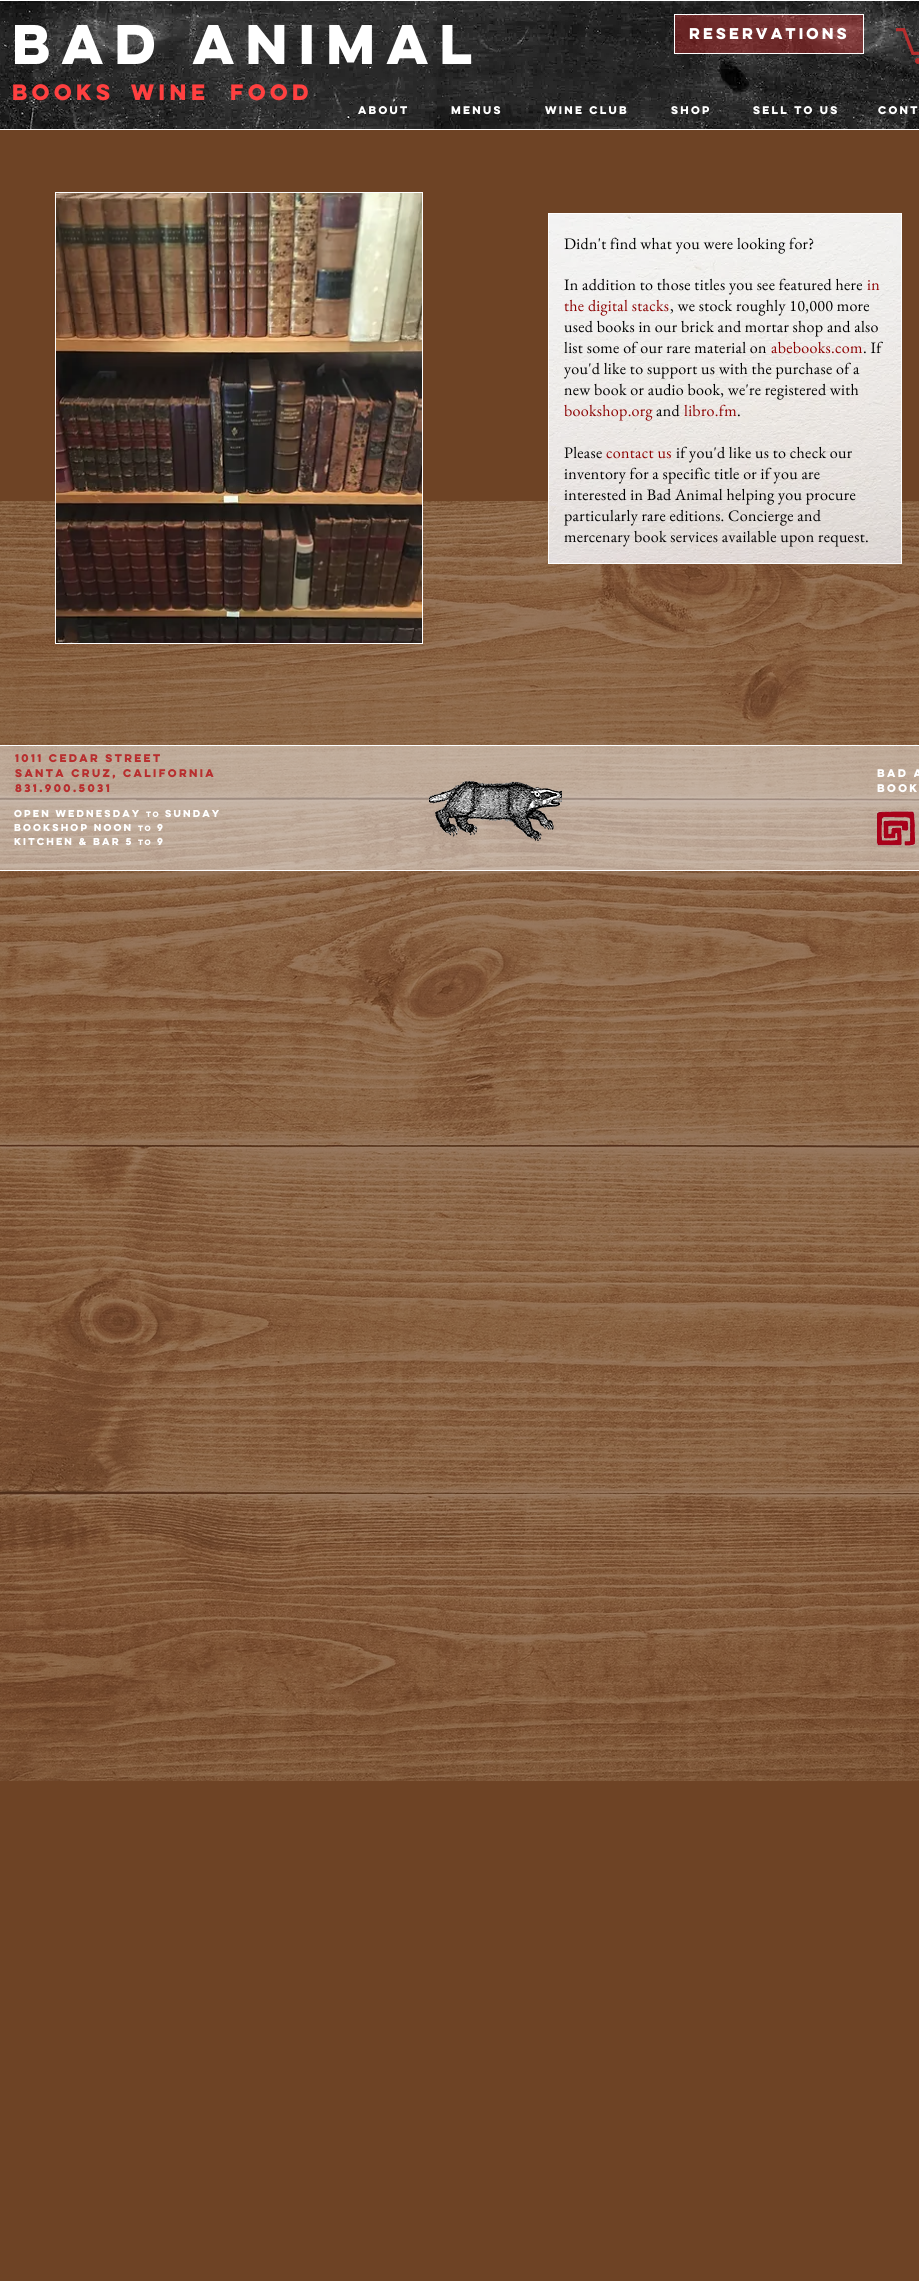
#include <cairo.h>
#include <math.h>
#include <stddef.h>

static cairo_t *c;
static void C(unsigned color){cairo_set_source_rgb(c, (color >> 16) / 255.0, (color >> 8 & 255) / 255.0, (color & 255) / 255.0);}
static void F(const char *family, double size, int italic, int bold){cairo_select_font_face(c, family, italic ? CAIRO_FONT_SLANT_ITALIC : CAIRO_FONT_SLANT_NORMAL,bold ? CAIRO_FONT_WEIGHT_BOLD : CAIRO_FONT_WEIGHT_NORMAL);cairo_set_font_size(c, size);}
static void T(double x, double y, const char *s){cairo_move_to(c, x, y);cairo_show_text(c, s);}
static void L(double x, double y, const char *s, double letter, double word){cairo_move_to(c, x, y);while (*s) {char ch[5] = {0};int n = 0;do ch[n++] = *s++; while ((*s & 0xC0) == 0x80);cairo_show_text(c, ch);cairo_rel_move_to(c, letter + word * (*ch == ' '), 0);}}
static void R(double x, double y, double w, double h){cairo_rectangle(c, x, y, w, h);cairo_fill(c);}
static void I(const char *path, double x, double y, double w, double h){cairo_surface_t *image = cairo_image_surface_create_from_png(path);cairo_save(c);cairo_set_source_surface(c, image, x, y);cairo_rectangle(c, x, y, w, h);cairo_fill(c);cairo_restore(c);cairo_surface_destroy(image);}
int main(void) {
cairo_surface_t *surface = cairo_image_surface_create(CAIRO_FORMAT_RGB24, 919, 2281);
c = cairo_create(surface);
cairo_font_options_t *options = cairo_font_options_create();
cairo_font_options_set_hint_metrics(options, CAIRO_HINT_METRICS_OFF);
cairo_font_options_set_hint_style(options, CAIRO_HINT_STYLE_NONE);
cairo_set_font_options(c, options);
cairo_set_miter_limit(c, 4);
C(0x6e4325);
cairo_paint(c);
C(0xffffff);
R(0,0,919,130);
I("1.png",0,1,919,128);
F("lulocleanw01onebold",50,0,1);
T(12,64,"bad animal");
cairo_set_source_rgba(c,0.722,0.18,0.18,0.49);
cairo_rectangle(c,674.5,14.5,189,39);
cairo_fill_preserve(c);
C(0xffffff);
cairo_set_line_width(c,1);
cairo_stroke(c);
F("lulocleanw01onebold",14,0,1);
T(689,39,"reservations");
I("2.png",896,28,23,36);
F("lulocleanw01onebold",20,0,1);
C(0xff4040);
T(12,100,"Books");
T(131,100,"Wine");
T(230,100,"food");
F("lulocleanw01onebold",10,0,1);
C(0xffffff);
T(358,114,"About");
T(451,114,"Menus");
T(545,114,"Wine Club");
T(671,114,"Shop");
T(753,114,"Sell to us");
T(878,114,"Cont");
I("7.png",0,501,919,1280);
R(55,192,368,452);
I("3.png",56,193,366,450);
R(548,213,354,351);
I("4.png",549,214,352,349);
F("EB Garamond",16,0,0);
C(0x000000);
L(564,249,"Didn't find what you were looking for?",.3,0);
L(564,290,"In addition to those titles you see featured here",.3,0);
C(0x8b0000);
L(867,290,"in",.3,0);
L(564,311,"the digital stacks",.3,0);
C(0x000000);
L(670,311,", we stock roughly 10,000 more",.3,0);
L(564,332,"used books in our brick and mortar shop and also",.3,0);
L(564,353,"list some of our rare material on",.3,0);
C(0x8b0000);
L(771,353,"abebooks.com",.3,0);
C(0x000000);
L(863,353,". If",.3,0);
L(564,374,"you'd like to support us with the purchase of a",.3,0);
L(564,395,"new book or audio book, we're registered with",.3,0);
C(0x8b0000);
L(564,416,"bookshop.org",.3,0);
C(0x000000);
L(656,416,"and",.3,0);
C(0x8b0000);
L(684,416,"libro.fm",.3,0);
C(0x000000);
L(737,416,".",.3,0);
L(564,458,"Please",.3,0);
C(0x8b0000);
L(606,458,"contact us",.3,0);
C(0x000000);
L(676,458,"if you'd like us to check our",.3,0);
L(564,479,"inventory for a specific title or if you are",.3,0);
L(564,500,"interested in Bad Animal helping you procure",.3,0);
L(564,521,"particularly rare editions. Concierge and",.3,0);
L(564,542,"mercenary",.25,0);
L(634,542,"book services available upon request.",.3,0);
cairo_set_source_rgba(c,1,1,1,0.45);
cairo_rectangle(c,-.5,745.5,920,125);
cairo_fill_preserve(c);
C(0xffffff);
cairo_stroke(c);
F("lulocleanw01onebold",10,0,1);
C(0xb82e2e);
L(15,762,"1011 Cedar Street",.1,0);
L(15,777,"Santa Cruz, California",.1,0);
L(15,792,"831.900.5031",.1,0);
I("5.png",429,781,133,60);
C(0xffffff);
L(877,777,"Bad A",.1,0);
L(877,792,"Book",.1,0);
F("lulocleanw01onebold",9,0,1);
L(14,817,"open wednesday",.1,0);
F("lulocleanw01onebold",7,0,1);
T(146,817,"to");
F("lulocleanw01onebold",9,0,1);
L(165,817,"Sunday",.1,0);
L(14,831,"Bookshop noon",.1,0);
F("lulocleanw01onebold",7,0,1);
T(138,831,"to");
F("lulocleanw01onebold",9,0,1);
L(157,831,"9",.1,0);
L(14,845,"kitchen & Bar 5",.1,0);
F("lulocleanw01onebold",7,0,1);
T(138,845,"to");
F("lulocleanw01onebold",9,0,1);
L(157,845,"9",.1,0);
I("6.png",877,811,38,35);
cairo_surface_write_to_png(surface, "o.png");
cairo_font_options_destroy(options);
cairo_destroy(c);
cairo_surface_destroy(surface);
return 0;
}
